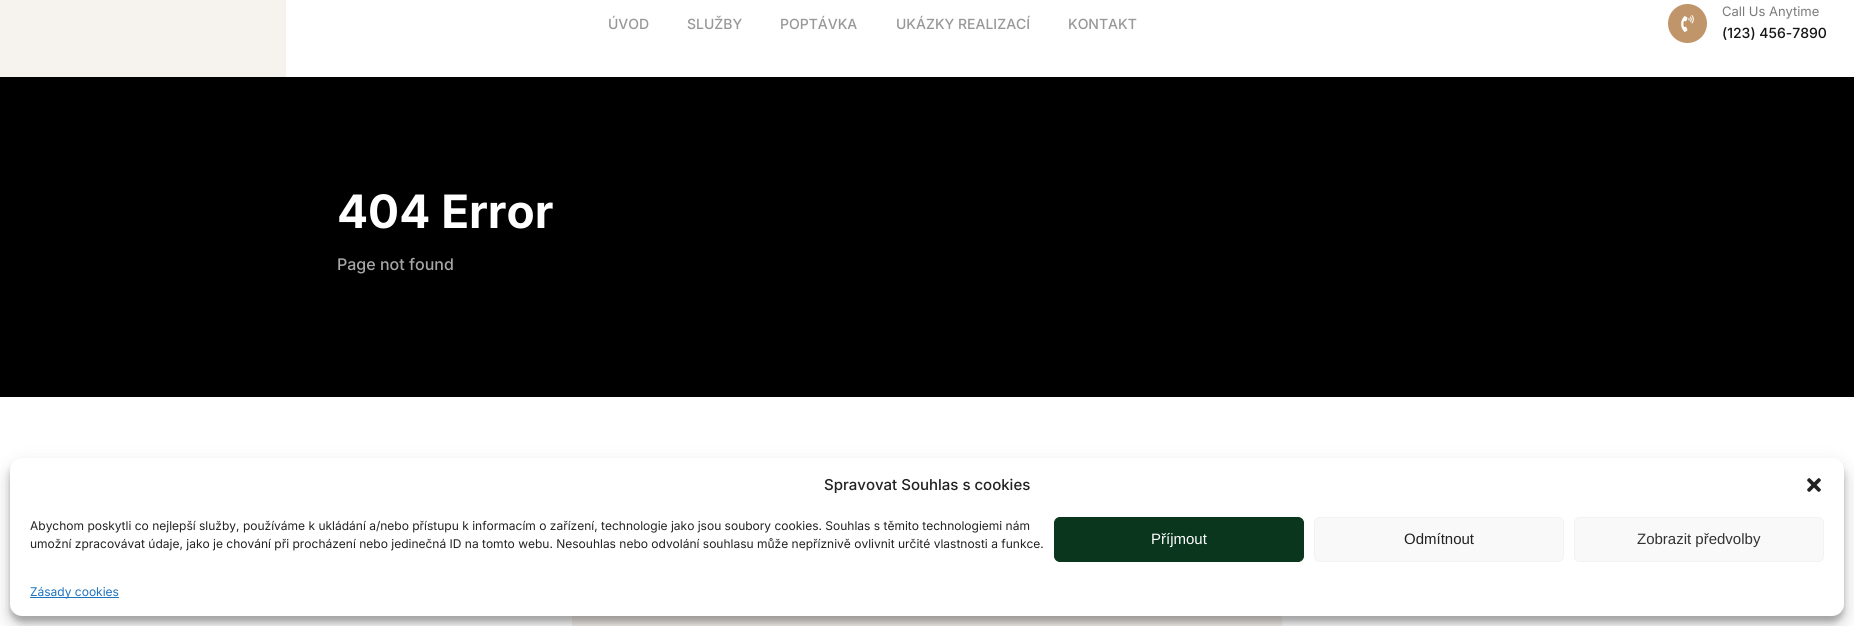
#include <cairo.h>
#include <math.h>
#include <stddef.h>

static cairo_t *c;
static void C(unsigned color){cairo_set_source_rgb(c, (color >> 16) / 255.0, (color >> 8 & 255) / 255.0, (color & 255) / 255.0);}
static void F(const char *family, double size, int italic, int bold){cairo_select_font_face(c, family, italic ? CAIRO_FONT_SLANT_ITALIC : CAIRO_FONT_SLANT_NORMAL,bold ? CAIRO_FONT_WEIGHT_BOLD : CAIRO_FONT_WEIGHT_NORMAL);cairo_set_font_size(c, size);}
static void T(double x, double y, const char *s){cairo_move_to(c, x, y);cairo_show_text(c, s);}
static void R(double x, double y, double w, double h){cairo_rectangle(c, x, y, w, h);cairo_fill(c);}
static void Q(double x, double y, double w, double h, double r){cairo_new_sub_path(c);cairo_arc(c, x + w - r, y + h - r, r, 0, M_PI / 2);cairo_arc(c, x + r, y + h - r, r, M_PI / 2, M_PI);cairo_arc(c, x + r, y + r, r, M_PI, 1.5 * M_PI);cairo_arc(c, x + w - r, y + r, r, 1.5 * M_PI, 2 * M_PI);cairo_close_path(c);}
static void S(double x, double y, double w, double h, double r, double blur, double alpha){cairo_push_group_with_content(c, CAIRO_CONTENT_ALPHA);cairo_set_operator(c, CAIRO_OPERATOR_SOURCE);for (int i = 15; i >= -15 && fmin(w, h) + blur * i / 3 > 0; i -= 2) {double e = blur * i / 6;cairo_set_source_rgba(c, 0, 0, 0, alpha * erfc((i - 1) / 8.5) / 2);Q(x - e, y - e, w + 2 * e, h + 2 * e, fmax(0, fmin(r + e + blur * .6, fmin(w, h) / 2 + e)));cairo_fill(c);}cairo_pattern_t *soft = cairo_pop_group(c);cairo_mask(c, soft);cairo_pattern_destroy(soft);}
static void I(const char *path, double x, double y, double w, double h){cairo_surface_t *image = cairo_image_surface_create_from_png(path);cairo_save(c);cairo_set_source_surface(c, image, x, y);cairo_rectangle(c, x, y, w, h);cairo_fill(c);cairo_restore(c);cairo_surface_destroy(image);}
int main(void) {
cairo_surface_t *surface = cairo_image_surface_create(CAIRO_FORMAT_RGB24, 1854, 626);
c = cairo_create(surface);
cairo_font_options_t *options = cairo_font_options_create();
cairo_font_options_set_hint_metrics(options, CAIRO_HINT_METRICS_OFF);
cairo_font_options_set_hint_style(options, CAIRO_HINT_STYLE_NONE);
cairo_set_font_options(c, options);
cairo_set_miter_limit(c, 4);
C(0xffffff);
cairo_paint(c);
C(0xf6f2ed);
R(0,0,286,77);
F("Inter Medium",14,0,0);
C(0x989898);
T(608,29,"ÚVOD");
T(687,29,"SLUŽBY");
T(780,29,"POPTÁVKA");
T(896,29,"UKÁZKY REALIZACÍ");
T(1068,29,"KONTAKT");
C(0xc0956a);
cairo_new_path(c);
cairo_arc(c,1687.5,23.5,19.5,0,2 * M_PI);
cairo_fill(c);
I("1.png",1681,15,13,17);
F("Inter",13,0,0);
C(0x7b7a7a);
T(1722,16,"Call Us Anytime");
F("Inter Medium",14,0,0);
C(0x151515);
T(1722,38,"(123) 456-7890");
C(0x000000);
R(0,77,1854,320);
F("Inter",46,0,1);
C(0xffffff);
T(337,228,"404 Error");
F("Inter Medium",16,0,0);
C(0xa6a6a6);
T(337,270,"Page not found");
C(0xf6f2ed);
R(572,616,710,10);
C(0x000000);
S(10,464,1834,158,12,3,.23);
S(10,468,1834,158,12,10,.19);
C(0xffffff);
Q(10,458,1834,158,12);
cairo_fill(c);
F("Inter Medium",15,0,0);
C(0x222222);
T(824,490,"Spravovat Souhlas s cookies");
I("2.png",1807,478,14,14);
F("Inter",12,0,0);
T(30,530,"Abychom poskytli co nejlepší služby, používáme k ukládání a/nebo přístupu k informacím o zařízení, technologie jako jsou soubory cookies. Souhlas s těmito technologiemi nám");
T(30,548,"umožní zpracovávat údaje, jako je chování při procházení nebo jedinečná ID na tomto webu. Nesouhlas nebo odvolání souhlasu může nepříznivě ovlivnit určité vlastnosti a funkce.");
C(0x0a361d);
Q(1054.5,517.5,249,44,5.5);
cairo_fill_preserve(c);
cairo_set_line_width(c,1);
cairo_stroke(c);
F("Liberation Sans",15,0,0);
C(0xffffff);
T(1151,544,"Příjmout");
C(0xf9f9f9);
Q(1314.5,517.5,249,44,5.5);
cairo_fill_preserve(c);
C(0xf2f2f2);
cairo_stroke(c);
C(0x222222);
T(1404,544,"Odmítnout");
C(0xf9f9f9);
Q(1574.5,517.5,249,44,5.5);
cairo_fill_preserve(c);
C(0xf2f2f2);
cairo_stroke(c);
C(0x333333);
T(1637,544,"Zobrazit předvolby");
C(0x1e73be);
R(30,597,89,1);
F("Inter",12,0,0);
T(30,596,"Zásady cookies");
cairo_surface_write_to_png(surface, "o.png");
cairo_font_options_destroy(options);
cairo_destroy(c);
cairo_surface_destroy(surface);
return 0;
}
